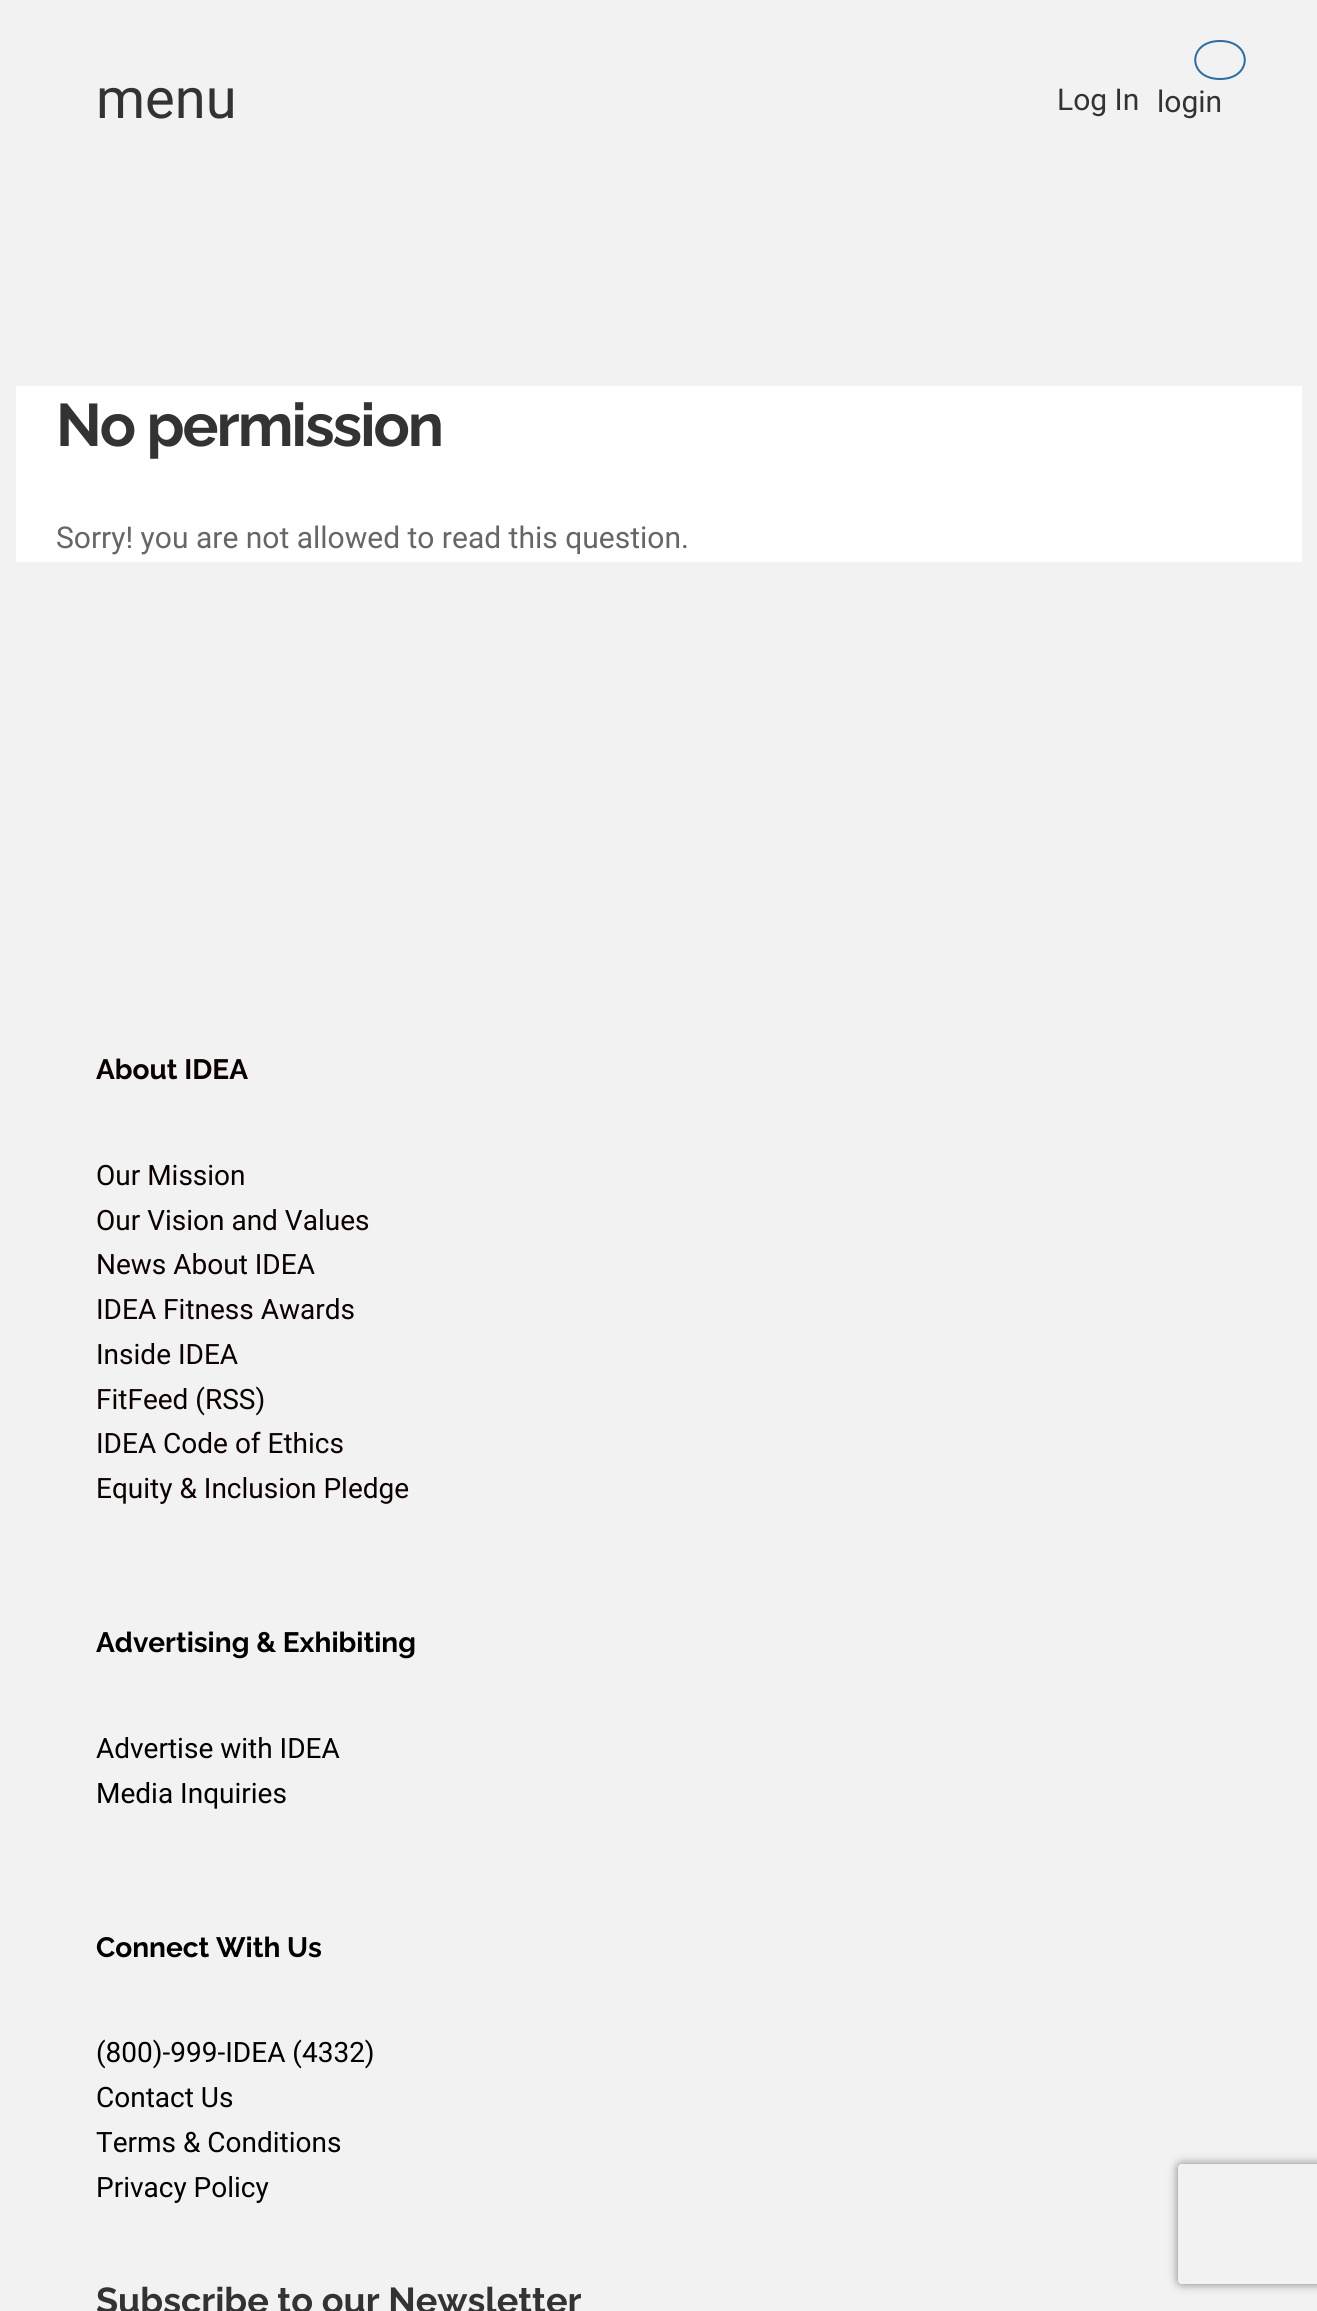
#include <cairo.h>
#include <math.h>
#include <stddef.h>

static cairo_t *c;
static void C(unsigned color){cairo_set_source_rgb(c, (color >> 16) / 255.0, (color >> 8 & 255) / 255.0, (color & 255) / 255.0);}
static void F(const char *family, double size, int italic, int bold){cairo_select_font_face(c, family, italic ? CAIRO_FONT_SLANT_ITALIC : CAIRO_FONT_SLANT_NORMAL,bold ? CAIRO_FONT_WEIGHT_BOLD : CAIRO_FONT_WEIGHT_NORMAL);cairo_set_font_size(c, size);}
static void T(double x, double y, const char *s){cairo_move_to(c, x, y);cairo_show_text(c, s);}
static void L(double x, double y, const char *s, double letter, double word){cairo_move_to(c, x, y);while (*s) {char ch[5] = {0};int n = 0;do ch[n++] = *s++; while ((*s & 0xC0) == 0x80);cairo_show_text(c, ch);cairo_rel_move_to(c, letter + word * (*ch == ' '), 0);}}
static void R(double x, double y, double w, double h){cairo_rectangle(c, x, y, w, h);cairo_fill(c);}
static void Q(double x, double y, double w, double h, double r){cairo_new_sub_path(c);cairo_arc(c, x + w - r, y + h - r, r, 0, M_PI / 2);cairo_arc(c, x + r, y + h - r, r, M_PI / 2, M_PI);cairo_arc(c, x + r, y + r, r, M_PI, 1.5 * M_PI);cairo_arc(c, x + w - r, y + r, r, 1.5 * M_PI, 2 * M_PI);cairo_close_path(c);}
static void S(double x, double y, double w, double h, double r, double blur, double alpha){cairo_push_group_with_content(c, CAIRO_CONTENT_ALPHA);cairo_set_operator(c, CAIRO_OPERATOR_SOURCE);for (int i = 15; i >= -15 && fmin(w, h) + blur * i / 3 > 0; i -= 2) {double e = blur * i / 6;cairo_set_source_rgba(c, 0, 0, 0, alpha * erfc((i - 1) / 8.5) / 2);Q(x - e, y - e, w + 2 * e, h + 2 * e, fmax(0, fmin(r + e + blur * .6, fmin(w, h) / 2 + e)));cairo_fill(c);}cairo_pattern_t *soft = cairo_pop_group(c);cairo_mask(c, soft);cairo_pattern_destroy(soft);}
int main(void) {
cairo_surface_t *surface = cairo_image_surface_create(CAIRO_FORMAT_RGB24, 1317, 2311);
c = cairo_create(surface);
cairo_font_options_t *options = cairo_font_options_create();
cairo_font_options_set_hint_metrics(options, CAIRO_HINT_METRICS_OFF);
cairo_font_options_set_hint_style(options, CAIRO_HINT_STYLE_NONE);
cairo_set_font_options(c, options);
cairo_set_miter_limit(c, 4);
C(0xf2f2f2);
cairo_paint(c);
cairo_new_path(c);
cairo_move_to(c,1220,41);
cairo_curve_to(c,1253,41,1253,79,1220,79);
cairo_curve_to(c,1187,79,1187,41,1220,41);
cairo_close_path(c);
C(0x2d6ca2);
cairo_stroke(c);
F("Roboto",56,0,0);
C(0x333333);
T(96,118,"menu");
F("Roboto",30,0,0);
T(1057,110,"Log In");
T(1157,112,"login");
C(0xffffff);
R(16,386,1286,176);
F("Raleway",60,0,1);
C(0x333333);
L(56,446,"No permission",-2,0);
F("Roboto",30,0,0);
C(0x666666);
T(56,548,"Sorry! you are not allowed to read this question.");
F("Raleway",28,0,1);
C(0x0c0000);
T(96,1079,"About IDEA");
F("Roboto",28,0,0);
T(96,1185,"Our Mission");
T(96,1230,"Our Vision and Values");
T(96,1274,"News About IDEA");
T(96,1319,"IDEA Fitness Awards");
T(96,1364,"Inside IDEA");
T(96,1409,"FitFeed (RSS)");
T(96,1453,"IDEA Code of Ethics");
T(96,1498,"Equity & Inclusion Pledge");
F("Raleway",28,0,1);
C(0x000000);
T(96,1652,"Advertising & Exhibiting");
F("Roboto",28,0,0);
T(96,1758,"Advertise with IDEA");
T(96,1803,"Media Inquiries");
F("Raleway",28,0,1);
T(96,1957,"Connect With Us");
F("Roboto",28,0,0);
T(96,2062,"(800)-999-IDEA (4332)");
T(96,2107,"Contact Us");
T(96,2152,"Terms & Conditions");
T(96,2197,"Privacy Policy");
F("Raleway",36,0,1);
C(0x333333);
T(96,2313,"Subscribe to our Newsletter");
cairo_save(c);
cairo_set_fill_rule(c,CAIRO_FILL_RULE_EVEN_ODD);
cairo_new_path(c);
cairo_move_to(c,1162,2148);
cairo_line_to(c,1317,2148);
cairo_line_to(c,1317,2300);
cairo_line_to(c,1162,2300);
cairo_close_path(c);
cairo_move_to(c,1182,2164);
cairo_line_to(c,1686,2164);
cairo_curve_to(c,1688,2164,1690,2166,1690,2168);
cairo_line_to(c,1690,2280);
cairo_curve_to(c,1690,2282,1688,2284,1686,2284);
cairo_line_to(c,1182,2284);
cairo_curve_to(c,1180,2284,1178,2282,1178,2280);
cairo_line_to(c,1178,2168);
cairo_curve_to(c,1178,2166,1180,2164,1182,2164);
cairo_close_path(c);
cairo_clip(c);
C(0x808080);
S(1178,2164,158,120,4,5,1);
cairo_restore(c);
cairo_surface_write_to_png(surface, "o.png");
cairo_font_options_destroy(options);
cairo_destroy(c);
cairo_surface_destroy(surface);
return 0;
}
